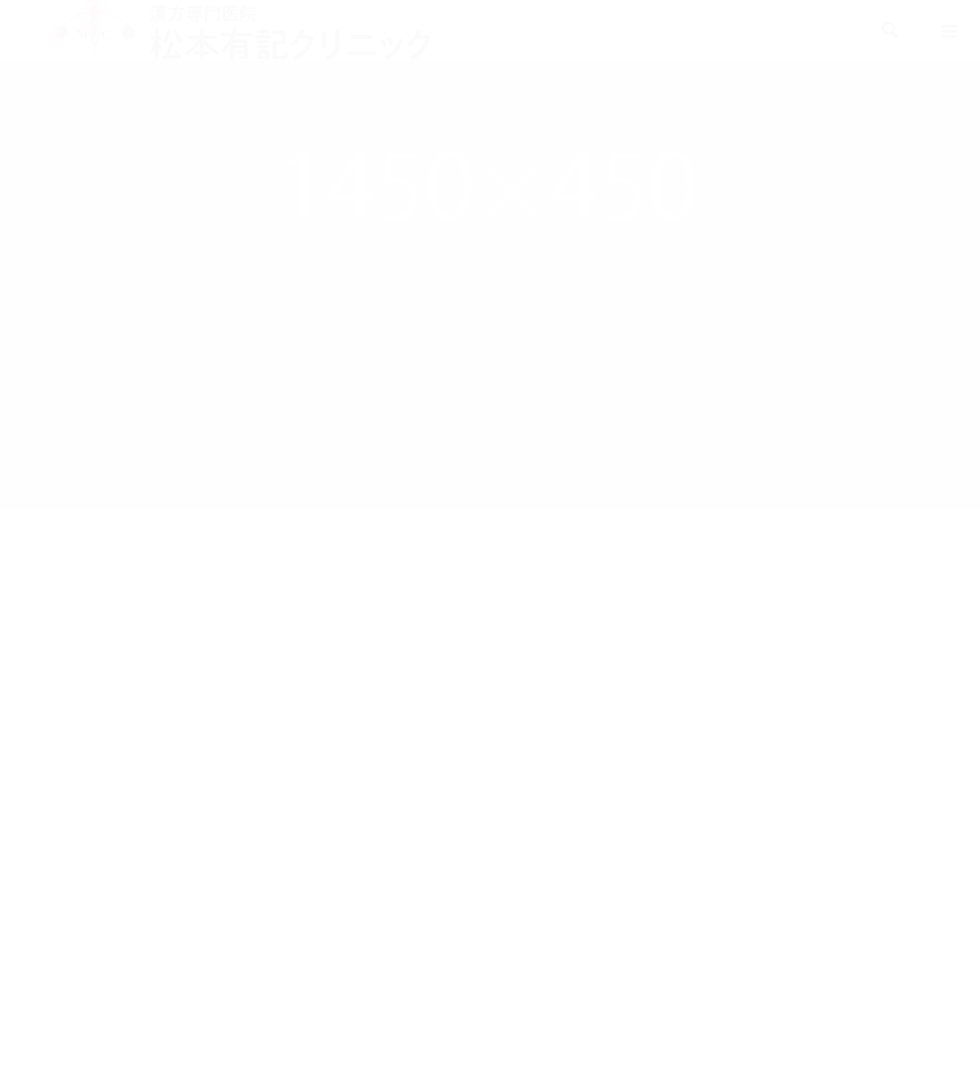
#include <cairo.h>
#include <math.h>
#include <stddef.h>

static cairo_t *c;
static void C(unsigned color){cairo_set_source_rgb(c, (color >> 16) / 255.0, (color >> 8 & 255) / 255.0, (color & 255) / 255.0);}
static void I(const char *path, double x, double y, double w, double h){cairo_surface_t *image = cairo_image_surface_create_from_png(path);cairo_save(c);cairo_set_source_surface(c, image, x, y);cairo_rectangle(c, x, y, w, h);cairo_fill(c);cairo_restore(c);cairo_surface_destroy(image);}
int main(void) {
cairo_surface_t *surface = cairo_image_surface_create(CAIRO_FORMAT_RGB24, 980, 1069);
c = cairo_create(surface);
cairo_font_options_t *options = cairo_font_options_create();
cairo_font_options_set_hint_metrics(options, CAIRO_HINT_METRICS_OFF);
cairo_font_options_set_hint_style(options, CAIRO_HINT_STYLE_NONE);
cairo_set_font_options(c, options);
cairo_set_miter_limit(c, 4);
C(0xffffff);
cairo_paint(c);
I("1.png",54,0,376,59);
I("2.png",882,22,16,16);
I("3.png",942,24,16,14);
I("4.png",0,60,980,450);
cairo_surface_write_to_png(surface, "o.png");
cairo_font_options_destroy(options);
cairo_destroy(c);
cairo_surface_destroy(surface);
return 0;
}
